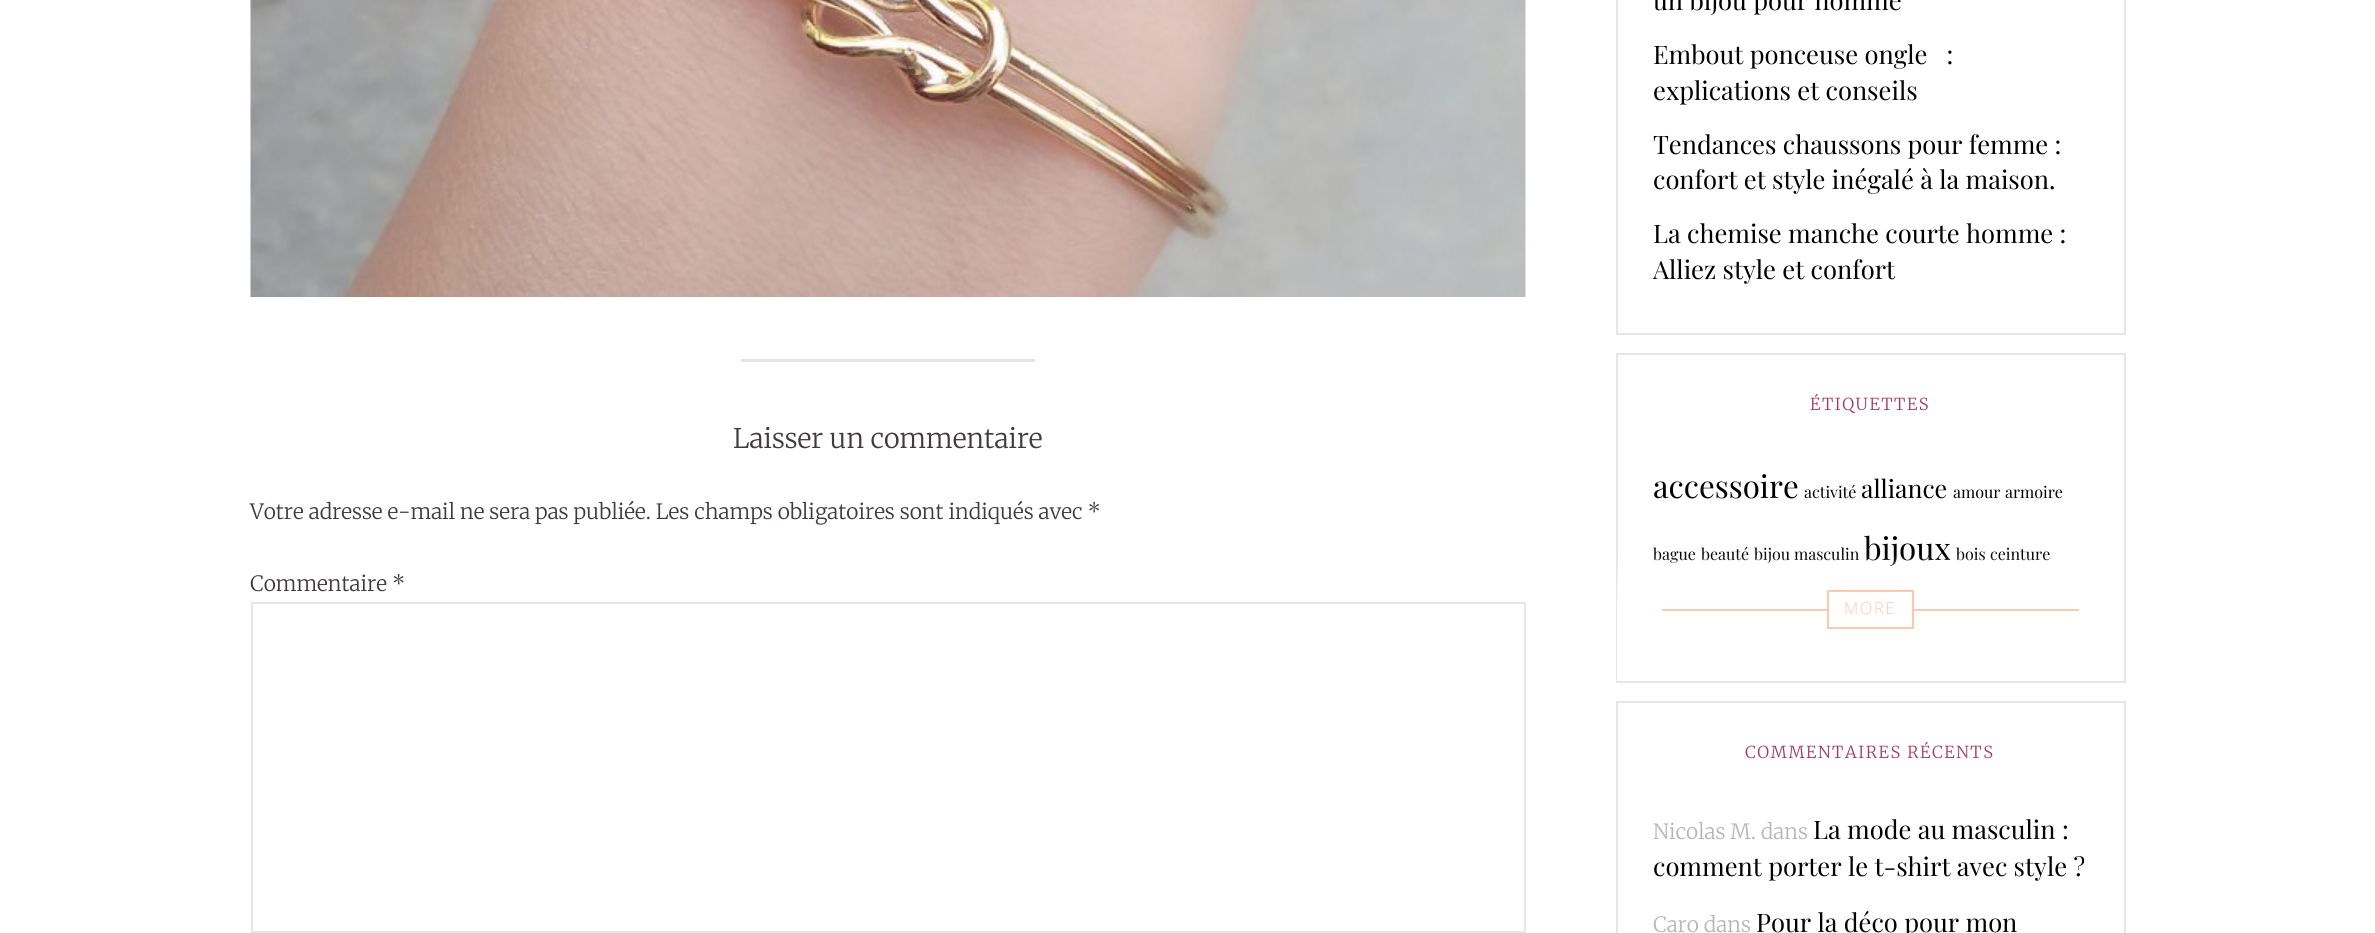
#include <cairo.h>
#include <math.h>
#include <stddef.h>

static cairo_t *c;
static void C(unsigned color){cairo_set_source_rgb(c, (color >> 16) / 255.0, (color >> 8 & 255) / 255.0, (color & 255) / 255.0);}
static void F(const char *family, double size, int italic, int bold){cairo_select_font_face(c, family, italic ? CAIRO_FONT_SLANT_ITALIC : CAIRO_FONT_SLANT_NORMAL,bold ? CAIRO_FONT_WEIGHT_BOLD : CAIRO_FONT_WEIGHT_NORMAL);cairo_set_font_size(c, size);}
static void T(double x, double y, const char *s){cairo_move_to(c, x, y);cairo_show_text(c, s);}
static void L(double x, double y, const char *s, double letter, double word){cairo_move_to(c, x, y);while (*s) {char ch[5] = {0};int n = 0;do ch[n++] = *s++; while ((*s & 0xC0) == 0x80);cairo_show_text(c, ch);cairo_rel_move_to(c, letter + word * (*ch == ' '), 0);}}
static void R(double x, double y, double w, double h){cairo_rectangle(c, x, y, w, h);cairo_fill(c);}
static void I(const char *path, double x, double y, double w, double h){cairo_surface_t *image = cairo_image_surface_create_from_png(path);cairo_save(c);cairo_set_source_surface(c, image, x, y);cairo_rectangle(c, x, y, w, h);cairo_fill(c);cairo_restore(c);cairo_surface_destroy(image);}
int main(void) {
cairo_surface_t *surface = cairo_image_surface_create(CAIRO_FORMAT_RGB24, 2375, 933);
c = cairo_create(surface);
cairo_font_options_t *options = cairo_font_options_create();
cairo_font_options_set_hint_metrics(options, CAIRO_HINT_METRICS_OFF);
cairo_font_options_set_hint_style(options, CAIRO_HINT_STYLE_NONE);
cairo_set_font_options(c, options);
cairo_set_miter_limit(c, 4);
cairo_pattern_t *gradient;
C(0xffffff);
cairo_paint(c);
I("1.png",250,0,1276,297);
C(0xe6e6e6);
R(741,359,294,3);
F("Merriweather Light",27,0,0);
C(0x403b3c);
T(733,448,"Laisser un commentaire");
F("Merriweather Light",21,0,0);
T(250,519,"Votre adresse e-mail ne sera pas publiée. Les champs obligatoires sont indiqués avec *");
T(250,591,"Commentaire *");
cairo_rectangle(c,252,603,1273,329);
C(0xe6e6e6);
cairo_stroke(c);
cairo_rectangle(c,1617,-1,508,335);
cairo_stroke(c);
F("Playfair Display",25.5,0,0);
C(0x000000);
T(1653,10,"un bijou pour homme");
T(1653,64,"Embout ponceuse ongle   :");
T(1653,100,"explications et conseils");
T(1653,154,"Tendances chaussons pour femme :");
T(1653,189,"confort et style inégalé à la maison.");
T(1653,243,"La chemise manche courte homme :");
T(1653,279,"Alliez style et confort");
cairo_rectangle(c,1617,354,508,328);
C(0xe6e6e6);
cairo_stroke(c);
F("Merriweather Light",16.5,0,0);
C(0xa33b61);
L(1810,410,"ÉTIQUETTES",1.6,0);
F("Playfair Display",31.25,0,0);
C(0x000000);
T(1653,498,"accessoire");
F("Playfair Display",16,0,0);
T(1804,498,"activité");
F("Playfair Display",25,0,0);
T(1861,498,"alliance");
F("Playfair Display",16,0,0);
T(1953,498,"amour");
T(2005,498,"armoire");
T(1653,560,"bague");
T(1701,560,"beauté");
T(1754,560,"bijou masculin");
F("Playfair Display",31.25,0,0);
T(1864,560,"bijoux");
F("Playfair Display",16,0,0);
T(1956,560,"bois");
T(1990,560,"ceinture");
gradient = cairo_pattern_create_linear(1871,681,1871,354);
cairo_pattern_add_color_stop_rgba(gradient,.19,1,1,1,1);
cairo_pattern_add_color_stop_rgba(gradient,.39,1,1,1,0);
cairo_set_source(c,gradient);
cairo_pattern_destroy(gradient);
R(1617,555,433,126);
C(0xfcc9b0);
R(1662,609,417,2);
C(0xffffff);
R(1829,609,83,2);
cairo_rectangle(c,1828,591,85,37);
C(0xfcc9b0);
cairo_stroke(c);
F("Open Sans Light",16.5,0,0);
L(1844,614,"MORE",1.6,0);
cairo_rectangle(c,1617,702,508,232);
C(0xe6e6e6);
cairo_stroke(c);
F("Merriweather Light",16.5,0,0);
C(0xa33b61);
L(1745,758,"COMMENTAIRES RÉCENTS",1.6,0);
F("Merriweather Light",21,0,0);
C(0xb8b6b7);
T(1653,839,"Nicolas M. dans");
F("Playfair Display",25.5,0,0);
C(0x000000);
T(1813,839,"La mode au masculin :");
T(1653,876,"comment porter le t-shirt avec style ?");
F("Merriweather Light",21,0,0);
C(0xb8b6b7);
T(1653,932,"Caro dans");
F("Playfair Display",25.5,0,0);
C(0x000000);
T(1756,932,"Pour la déco pour mon");
cairo_surface_write_to_png(surface, "o.png");
cairo_font_options_destroy(options);
cairo_destroy(c);
cairo_surface_destroy(surface);
return 0;
}
